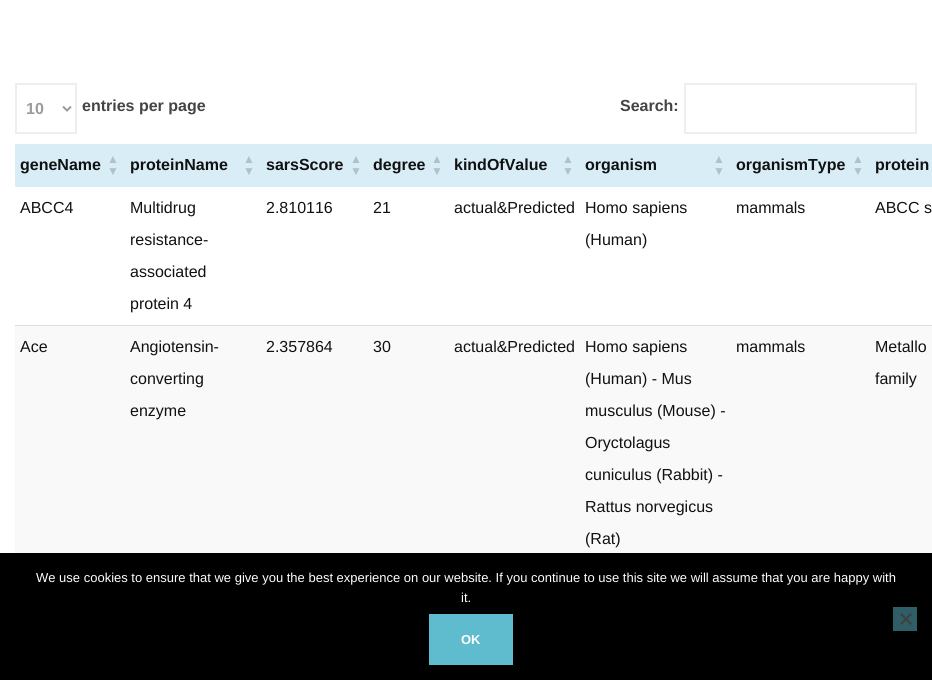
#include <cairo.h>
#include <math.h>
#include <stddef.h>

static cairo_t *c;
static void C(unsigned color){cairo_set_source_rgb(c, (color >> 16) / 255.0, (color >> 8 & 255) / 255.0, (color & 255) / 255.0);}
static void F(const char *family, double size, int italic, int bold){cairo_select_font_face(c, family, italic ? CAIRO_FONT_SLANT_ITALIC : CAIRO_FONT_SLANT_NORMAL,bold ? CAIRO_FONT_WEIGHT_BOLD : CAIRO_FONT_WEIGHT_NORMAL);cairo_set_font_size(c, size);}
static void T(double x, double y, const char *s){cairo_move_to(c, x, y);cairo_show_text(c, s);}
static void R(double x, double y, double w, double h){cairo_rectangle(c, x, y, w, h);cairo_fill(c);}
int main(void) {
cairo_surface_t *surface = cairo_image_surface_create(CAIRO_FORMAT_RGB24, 932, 680);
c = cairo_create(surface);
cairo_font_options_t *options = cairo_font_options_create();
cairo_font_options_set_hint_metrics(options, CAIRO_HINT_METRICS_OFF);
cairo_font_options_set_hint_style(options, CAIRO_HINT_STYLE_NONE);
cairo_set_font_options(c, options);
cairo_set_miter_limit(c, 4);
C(0xffffff);
cairo_paint(c);
cairo_rectangle(c,16,84,60,49);
C(0xeeeeee);
cairo_stroke(c);
cairo_new_path(c);
cairo_move_to(c,63,106.5);
cairo_line_to(c,67,110.5);
cairo_line_to(c,71,106.5);
C(0x9b9b9b);
cairo_stroke(c);
F("Liberation Sans",16,0,1);
T(26,114,"10");
C(0x444444);
T(82,111,"entries per page");
T(620,111,"Search:");
cairo_rectangle(c,685,84,231,49);
C(0xeeeeee);
cairo_stroke(c);
C(0xd9edf7);
R(15,144,917,43);
C(0x111111);
T(20,170,"geneName");
F("Liberation Sans",12,0,1);
C(0xb1c1c9);
T(107,163,"▲");
T(107,175,"▼");
F("Liberation Sans",16,0,1);
C(0x111111);
T(130,170,"proteinName");
F("Liberation Sans",12,0,1);
C(0xb1c1c9);
T(243,163,"▲");
T(243,175,"▼");
F("Liberation Sans",16,0,1);
C(0x111111);
T(266,170,"sarsScore");
F("Liberation Sans",12,0,1);
C(0xb1c1c9);
T(350,163,"▲");
T(350,175,"▼");
F("Liberation Sans",16,0,1);
C(0x111111);
T(373,170,"degree");
F("Liberation Sans",12,0,1);
C(0xb1c1c9);
T(431,163,"▲");
T(431,175,"▼");
F("Liberation Sans",16,0,1);
C(0x111111);
T(454,170,"kindOfValue");
F("Liberation Sans",12,0,1);
C(0xb1c1c9);
T(562,163,"▲");
T(562,175,"▼");
F("Liberation Sans",16,0,1);
C(0x111111);
T(585,170,"organism");
F("Liberation Sans",12,0,1);
C(0xb1c1c9);
T(713,163,"▲");
T(713,175,"▼");
F("Liberation Sans",16,0,1);
C(0x111111);
T(736,170,"organismType");
F("Liberation Sans",12,0,1);
C(0xb1c1c9);
T(852,163,"▲");
T(852,175,"▼");
F("Liberation Sans",16,0,1);
C(0x111111);
T(875,170,"protein");
F("Liberation Sans",16,0,0);
T(20,213,"ABCC4");
T(130,213,"Multidrug");
T(130,245,"resistance-");
T(130,277,"associated");
T(130,309,"protein 4");
T(266,213,"2.810116");
T(373,213,"21");
T(454,213,"actual&Predicted");
T(585,213,"Homo sapiens");
T(585,245,"(Human)");
T(736,213,"mammals");
T(875,213,"ABCC s");
C(0xf9f9f9);
R(15,326,917,227);
C(0x111111);
T(20,352,"Ace");
T(130,352,"Angiotensin-");
T(130,384,"converting");
T(130,416,"enzyme");
T(266,352,"2.357864");
T(373,352,"30");
T(454,352,"actual&Predicted");
T(585,352,"Homo sapiens");
T(585,384,"(Human) - Mus");
T(585,416,"musculus (Mouse) -");
T(585,448,"Oryctolagus");
T(585,480,"cuniculus (Rabbit) -");
T(585,512,"Rattus norvegicus");
T(585,544,"(Rat)");
T(736,352,"mammals");
C(0xdddddd);
R(15,325,917,1);
C(0x111111);
T(875,352,"Metallo");
T(875,384,"family");
C(0x000000);
R(0,553,932,127);
F("Liberation Sans",13,0,0);
C(0xffffff);
T(36,582,"We use cookies to ensure that we give you the best experience on our website. If you continue to use this site we will assume that you are happy with");
T(461,602,"it.");
C(0x305e67);
R(893,607,24,24);
C(0x404040);
cairo_new_path(c);
cairo_move_to(c,910.5,613);
cairo_line_to(c,912,614.5);
cairo_line_to(c,901.5,625);
cairo_line_to(c,900,623.5);
cairo_close_path(c);
cairo_fill(c);
cairo_new_path(c);
cairo_move_to(c,900,614.5);
cairo_line_to(c,901.5,613);
cairo_line_to(c,912,623.5);
cairo_line_to(c,910.5,625);
cairo_close_path(c);
cairo_fill(c);
C(0x5fbbce);
R(429,614,84,51);
F("Liberation Sans",13,0,1);
C(0xffffff);
T(461,644,"OK");
cairo_surface_write_to_png(surface, "o.png");
cairo_font_options_destroy(options);
cairo_destroy(c);
cairo_surface_destroy(surface);
return 0;
}
